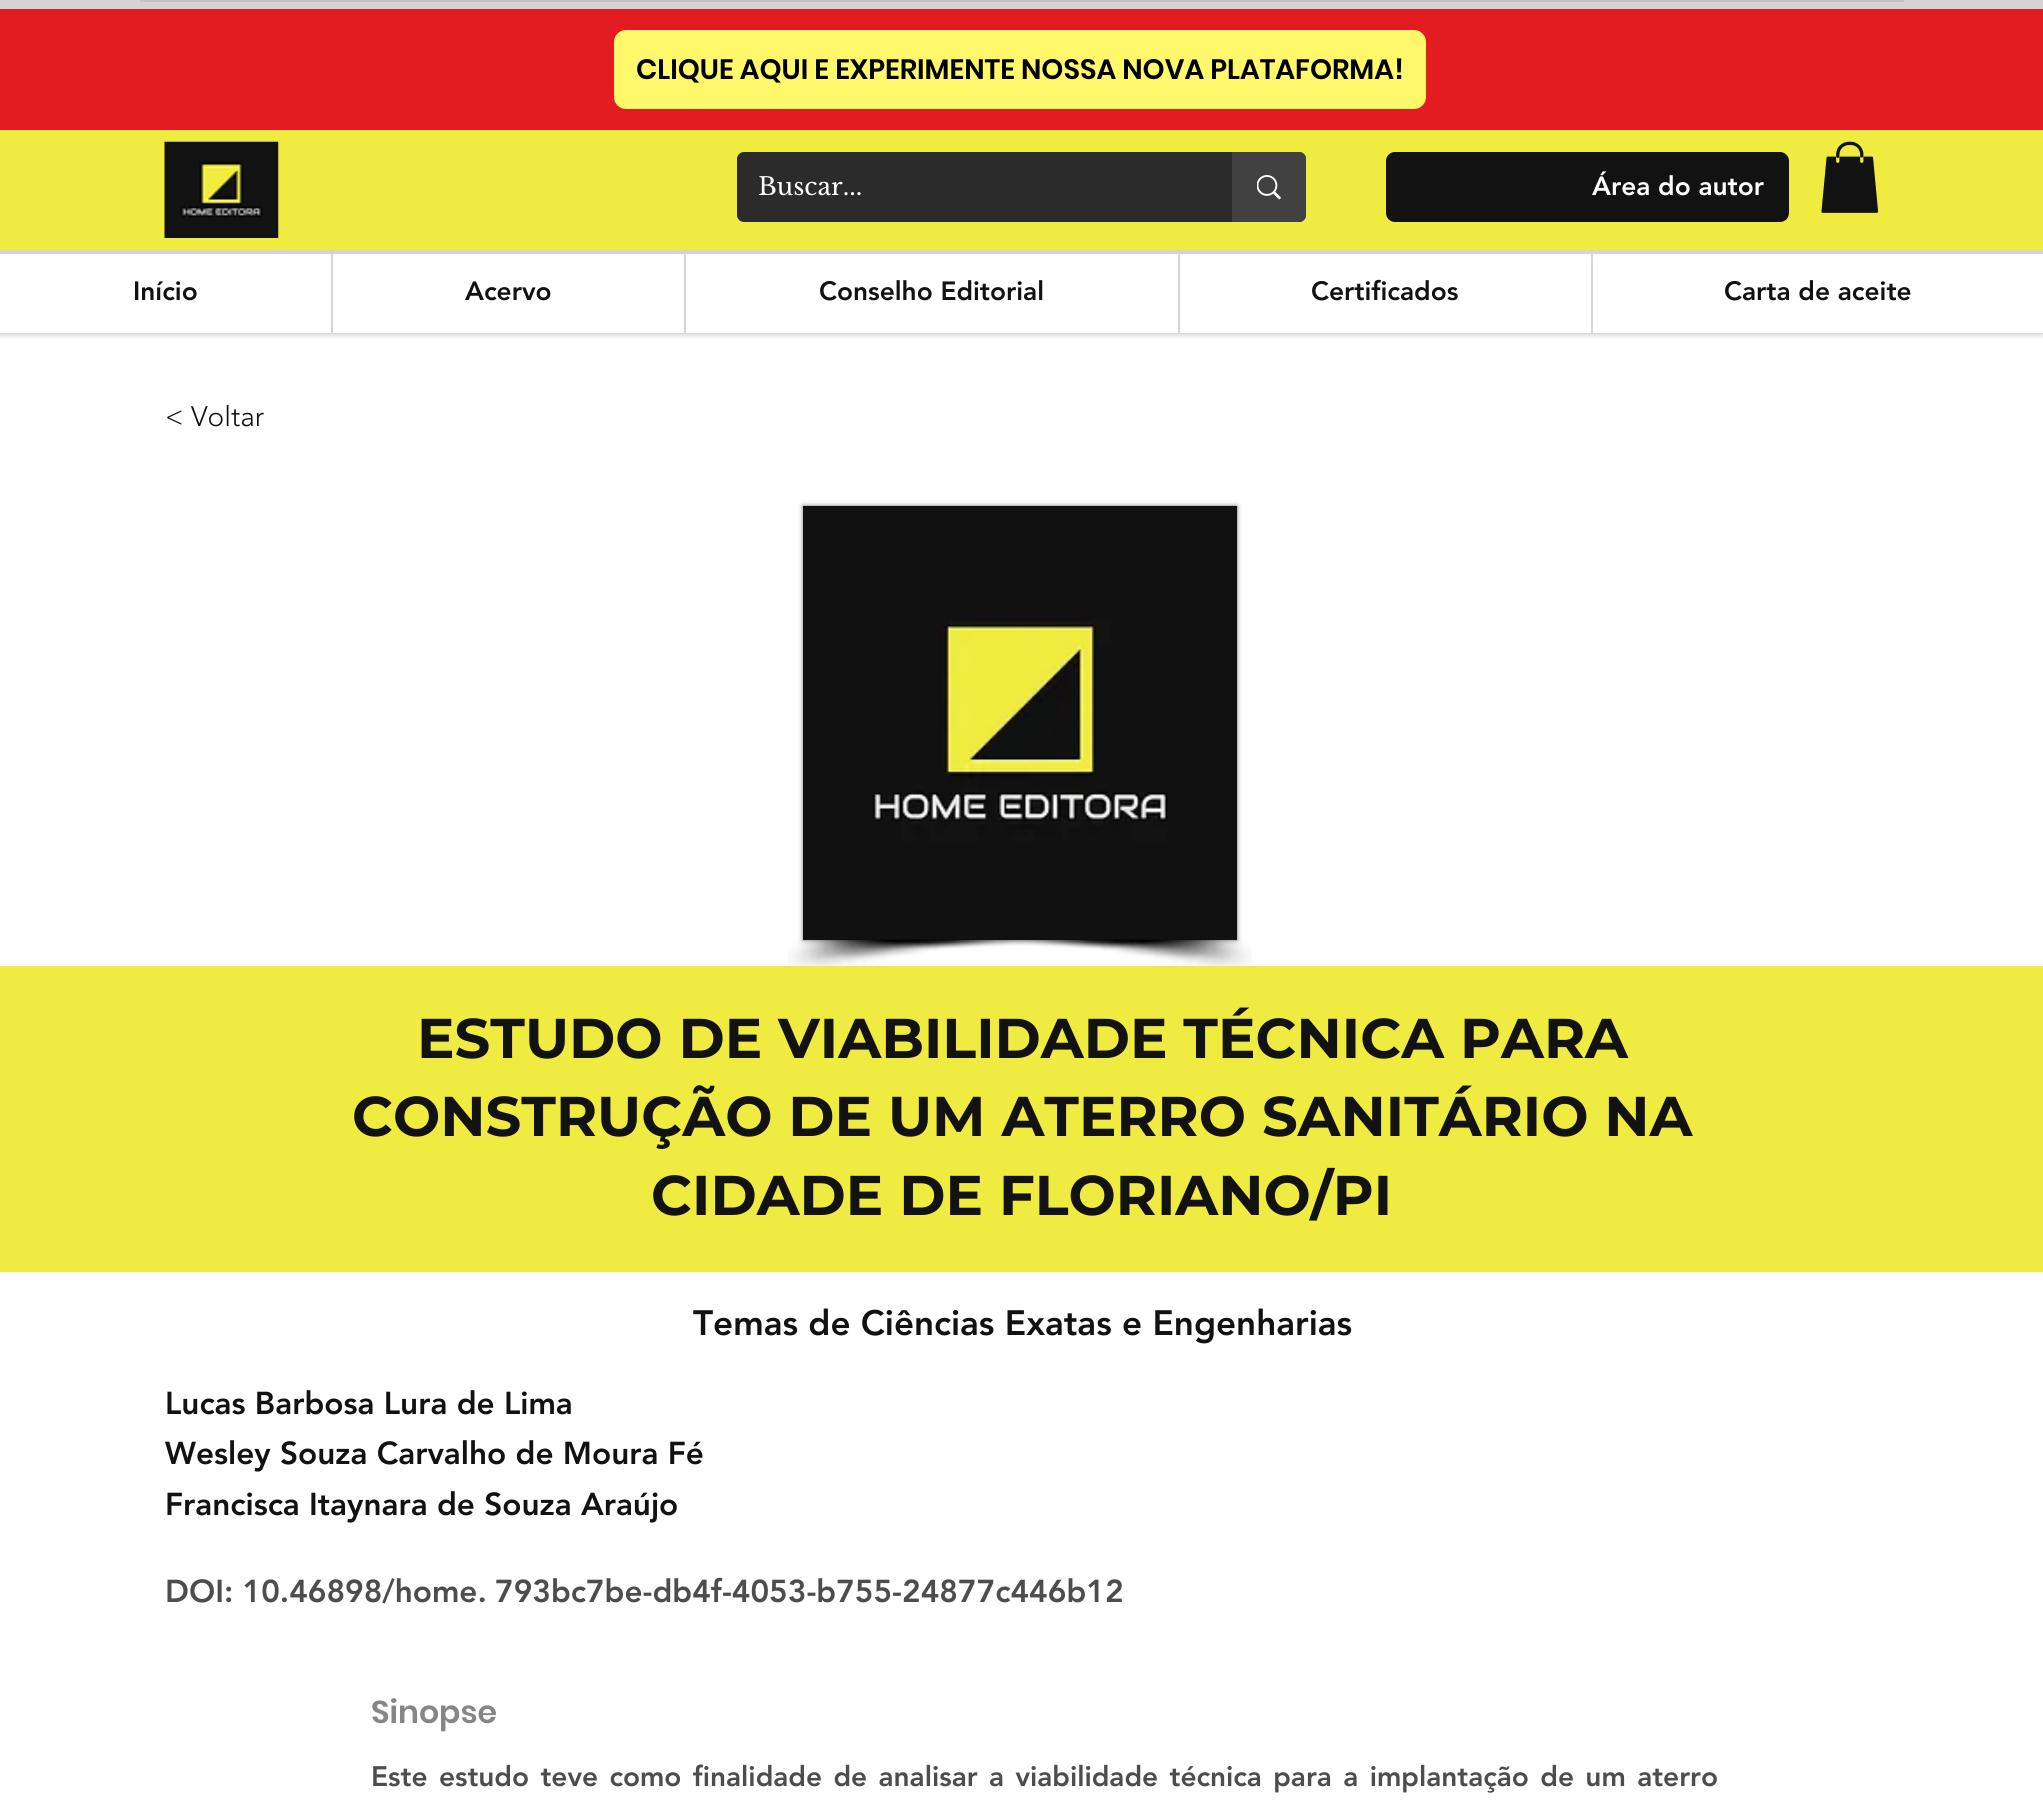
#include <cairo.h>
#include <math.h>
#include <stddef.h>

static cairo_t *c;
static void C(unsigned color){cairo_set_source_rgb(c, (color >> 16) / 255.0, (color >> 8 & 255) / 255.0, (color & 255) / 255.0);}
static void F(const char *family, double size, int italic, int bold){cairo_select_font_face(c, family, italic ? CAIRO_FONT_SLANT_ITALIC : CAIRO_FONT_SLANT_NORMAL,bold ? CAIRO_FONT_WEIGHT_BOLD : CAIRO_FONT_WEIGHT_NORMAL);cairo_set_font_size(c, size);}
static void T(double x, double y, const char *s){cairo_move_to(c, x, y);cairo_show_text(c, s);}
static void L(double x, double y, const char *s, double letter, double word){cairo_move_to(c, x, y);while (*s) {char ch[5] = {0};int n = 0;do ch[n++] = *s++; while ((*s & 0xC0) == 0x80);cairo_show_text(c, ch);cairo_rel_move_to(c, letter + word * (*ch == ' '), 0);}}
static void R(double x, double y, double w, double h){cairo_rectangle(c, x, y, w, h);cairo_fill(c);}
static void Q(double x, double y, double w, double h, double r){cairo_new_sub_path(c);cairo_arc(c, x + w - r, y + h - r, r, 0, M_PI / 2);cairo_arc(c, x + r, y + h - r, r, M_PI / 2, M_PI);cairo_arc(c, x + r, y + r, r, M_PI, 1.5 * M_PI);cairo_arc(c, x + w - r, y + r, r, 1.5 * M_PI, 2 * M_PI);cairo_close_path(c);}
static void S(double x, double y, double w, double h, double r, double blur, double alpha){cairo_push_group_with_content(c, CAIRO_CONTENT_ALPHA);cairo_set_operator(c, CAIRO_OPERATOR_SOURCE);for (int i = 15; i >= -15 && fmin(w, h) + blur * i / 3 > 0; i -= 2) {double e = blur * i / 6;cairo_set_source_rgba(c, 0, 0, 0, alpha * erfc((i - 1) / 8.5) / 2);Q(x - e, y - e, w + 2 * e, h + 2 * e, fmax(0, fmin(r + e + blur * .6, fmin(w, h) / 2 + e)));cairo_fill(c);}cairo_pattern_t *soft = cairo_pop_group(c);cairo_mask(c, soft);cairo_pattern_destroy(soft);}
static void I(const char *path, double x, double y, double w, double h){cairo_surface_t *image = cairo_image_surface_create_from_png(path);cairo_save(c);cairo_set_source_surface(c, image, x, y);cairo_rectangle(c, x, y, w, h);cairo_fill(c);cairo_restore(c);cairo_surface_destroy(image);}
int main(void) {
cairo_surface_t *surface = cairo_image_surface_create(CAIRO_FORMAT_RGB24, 2043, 1803);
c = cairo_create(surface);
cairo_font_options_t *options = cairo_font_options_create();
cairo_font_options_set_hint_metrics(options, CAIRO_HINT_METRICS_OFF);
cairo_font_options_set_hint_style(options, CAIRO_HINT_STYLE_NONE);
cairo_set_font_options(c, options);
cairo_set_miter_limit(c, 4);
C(0xffffff);
cairo_paint(c);
C(0x000000);
S(0,0,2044,331,0,4.5,.5);
C(0xd4d4d4);
R(0,0,2043,254);
C(0xc3c3c3);
R(140,0,1764,2);
C(0xe21c21);
R(0,9,2043,121);
C(0xfff86b);
Q(614,30,812,79,12);
cairo_fill(c);
F("Poppins SemiBold",28,0,0);
C(0x000000);
T(636,79,"CLIQUE AQUI E EXPERIMENTE NOSSA NOVA PLATAFORMA!");
C(0xf0eb40);
R(0,130,2043,120);
I("1.png",164,141,115,97);
C(0x2b2b2b);
Q(737,152,569,70,7);
cairo_fill(c);
F("Libre Baskerville",24.5,0,0);
C(0xffffff);
T(758,195,"Buscar...");
C(0x414141);
cairo_new_path(c);
cairo_move_to(c,1232,152);
cairo_line_to(c,1299,152);
cairo_curve_to(c,1303,152,1306,155,1306,159);
cairo_line_to(c,1306,215);
cairo_curve_to(c,1306,219,1303,222,1299,222);
cairo_line_to(c,1232,222);
cairo_close_path(c);
cairo_fill(c);
I("2.png",1257,175,24,25);
C(0x121212);
Q(1386,152,403,70,9);
cairo_fill(c);
F("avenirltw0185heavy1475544 Black",26.25,0,0);
C(0xffffff);
T(1592,195,"Área do autor");
I("3.png",1821,141,58,72);
R(0,254,2043,79);
C(0x121212);
T(133,300,"Início");
C(0xd4d4d4);
R(331,254,2,79);
C(0x121212);
T(465,300,"Acervo");
C(0xd4d4d4);
R(684,254,2,79);
C(0x121212);
T(819,300,"Conselho Editorial");
C(0xd4d4d4);
R(1178,254,2,79);
C(0x121212);
T(1311,300,"Certificados");
C(0xd4d4d4);
R(1591,254,2,79);
C(0x121212);
T(1724,300,"Carta de aceite");
F("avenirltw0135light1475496 Light",28,0,0);
T(165,426,"< Voltar");
C(0x000000);
S(803,506,434,434,0,2.5,.5);
C(0x121212);
R(803,506,434,434);
I("4.png",803,505,435,435);
I("5.png",788,939,269,27);
I("6.png",997,939,255,27);
C(0xf0eb40);
R(0,966,2043,306);
F("Montserrat",56,0,1);
C(0x121212);
T(417,1058,"ESTUDO DE VIABILIDADE TÉCNICA PARA");
T(352,1136,"CONSTRUÇÃO DE UM ATERRO SANITÁRIO NA");
T(651,1215,"CIDADE DE FLORIANO/PI");
F("avenirltw0185heavy1475544 Black",35,0,0);
T(693,1335,"Temas de Ciências Exatas e Engenharias");
F("avenirltw0185heavy1475544 Black",31.5,0,0);
T(165,1414,"Lucas Barbosa Lura de Lima");
T(165,1464,"Wesley Souza Carvalho de Moura Fé");
T(165,1515,"Francisca Itaynara de Souza Araújo");
C(0x4d4d4d);
T(165,1602,"DOI: 10.46898/home.");
T(495,1602,"793bc7be-db4f-4053-b755-24877c446b12");
F("Poppins SemiBold",31.5,0,0);
C(0x868686);
T(371,1723,"Sinopse");
F("avenirltw0185heavy1475544 Black",28,0,0);
C(0x4d4d4d);
L(371,1786,"Este estudo teve como finalidade de analisar a viabilidade técnica para a implantação de um aterro",0,3.1);
cairo_surface_write_to_png(surface, "o.png");
cairo_font_options_destroy(options);
cairo_destroy(c);
cairo_surface_destroy(surface);
return 0;
}
